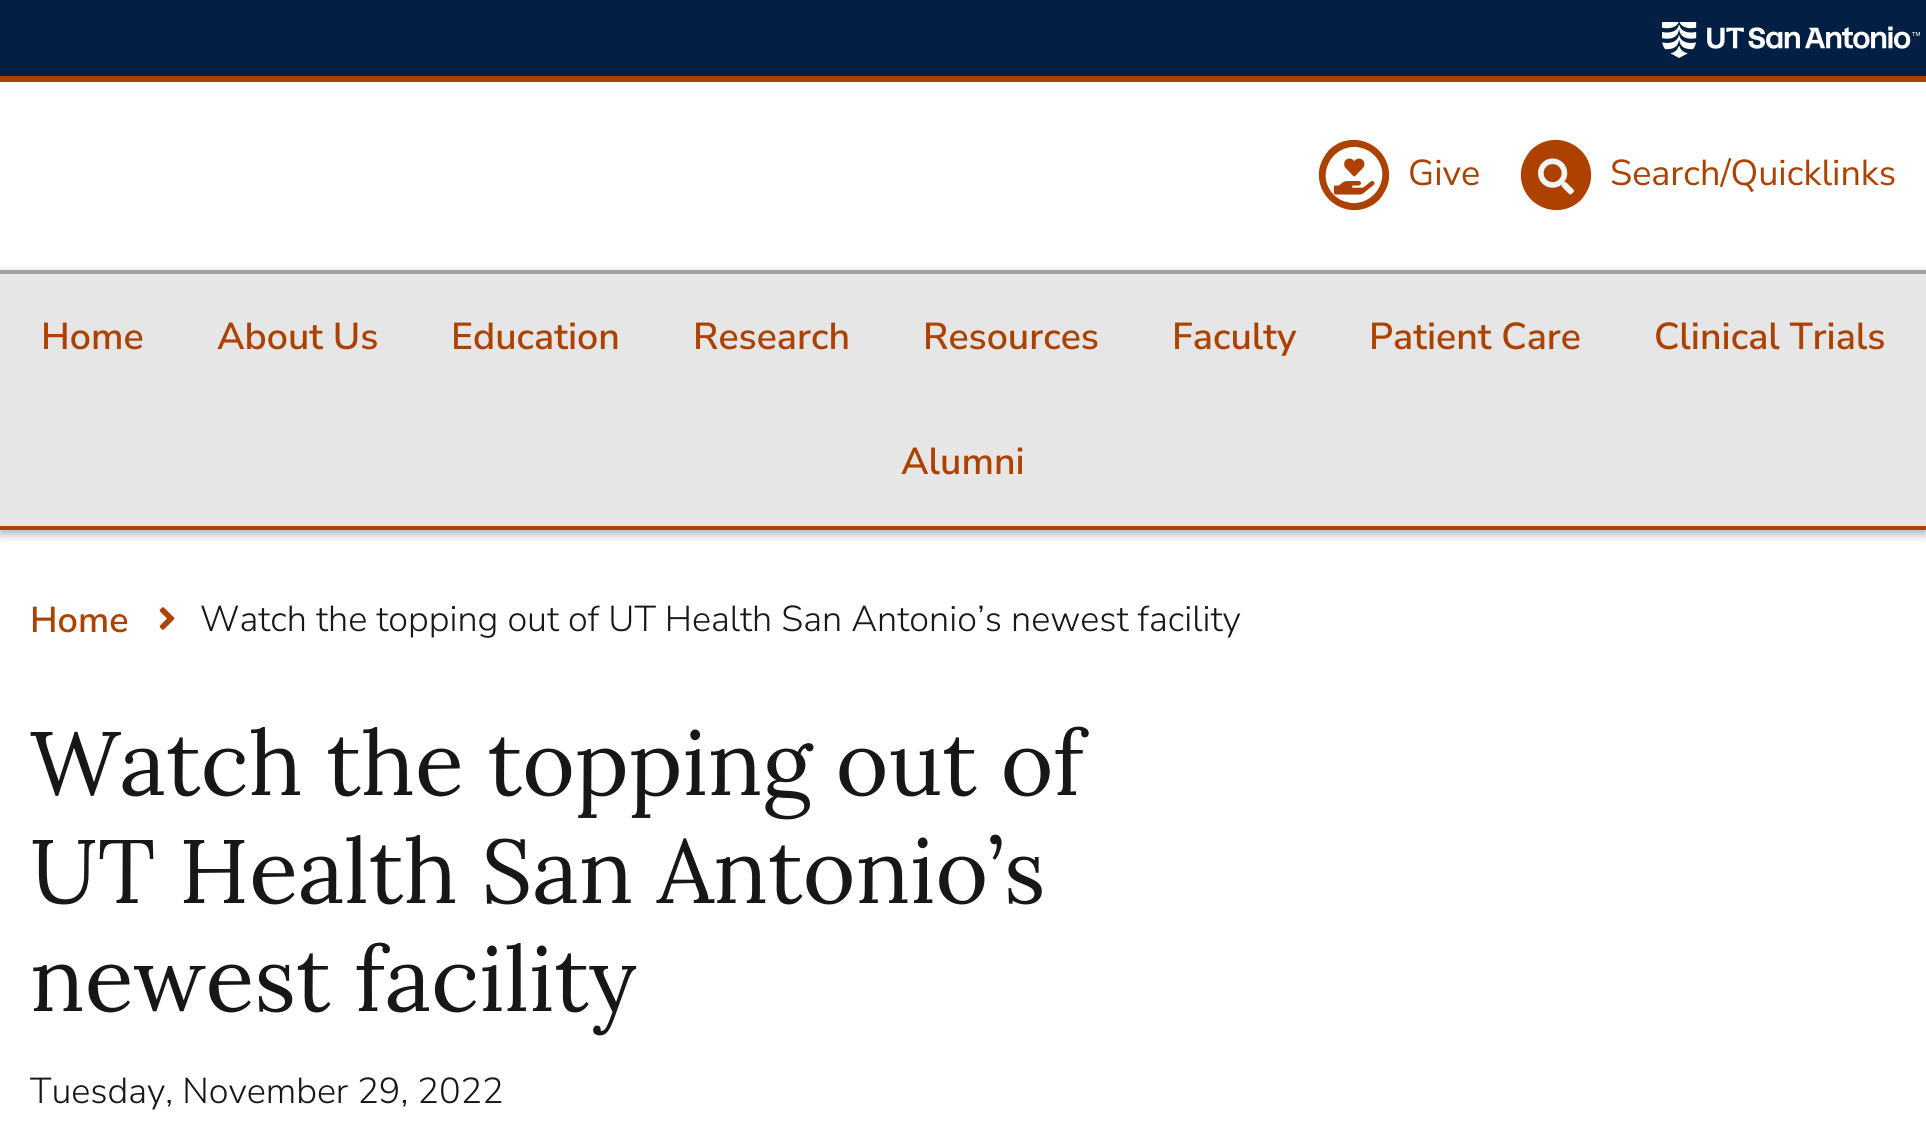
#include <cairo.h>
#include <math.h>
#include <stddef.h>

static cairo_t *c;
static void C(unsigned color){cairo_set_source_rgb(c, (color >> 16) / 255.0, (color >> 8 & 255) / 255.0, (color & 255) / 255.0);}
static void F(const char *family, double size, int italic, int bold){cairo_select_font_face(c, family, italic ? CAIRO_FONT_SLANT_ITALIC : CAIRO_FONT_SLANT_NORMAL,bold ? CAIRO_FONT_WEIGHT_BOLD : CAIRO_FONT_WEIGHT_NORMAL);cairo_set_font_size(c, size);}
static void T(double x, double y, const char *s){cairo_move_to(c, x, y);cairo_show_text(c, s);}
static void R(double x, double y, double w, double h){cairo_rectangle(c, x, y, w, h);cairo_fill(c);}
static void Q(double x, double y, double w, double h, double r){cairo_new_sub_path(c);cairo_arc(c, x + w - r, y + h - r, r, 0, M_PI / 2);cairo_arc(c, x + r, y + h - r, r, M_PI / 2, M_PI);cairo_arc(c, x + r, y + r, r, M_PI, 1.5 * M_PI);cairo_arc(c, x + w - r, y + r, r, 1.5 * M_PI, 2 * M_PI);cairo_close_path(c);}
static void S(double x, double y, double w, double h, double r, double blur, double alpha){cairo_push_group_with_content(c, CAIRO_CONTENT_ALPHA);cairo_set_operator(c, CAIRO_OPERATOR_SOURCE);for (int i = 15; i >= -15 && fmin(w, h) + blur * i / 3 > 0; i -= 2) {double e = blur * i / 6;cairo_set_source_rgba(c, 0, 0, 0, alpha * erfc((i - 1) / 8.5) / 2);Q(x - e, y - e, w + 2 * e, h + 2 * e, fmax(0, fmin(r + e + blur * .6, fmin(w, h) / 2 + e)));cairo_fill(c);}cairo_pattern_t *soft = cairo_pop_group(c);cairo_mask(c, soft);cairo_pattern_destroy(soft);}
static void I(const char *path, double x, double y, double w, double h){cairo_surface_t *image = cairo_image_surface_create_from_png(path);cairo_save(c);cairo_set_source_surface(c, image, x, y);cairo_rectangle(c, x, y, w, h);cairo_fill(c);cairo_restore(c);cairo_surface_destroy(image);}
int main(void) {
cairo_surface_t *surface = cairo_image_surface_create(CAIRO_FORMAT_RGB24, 1926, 1140);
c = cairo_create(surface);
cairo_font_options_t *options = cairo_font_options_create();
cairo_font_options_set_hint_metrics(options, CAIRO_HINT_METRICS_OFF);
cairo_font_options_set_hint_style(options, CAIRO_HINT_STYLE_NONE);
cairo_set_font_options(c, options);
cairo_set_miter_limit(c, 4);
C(0xffffff);
cairo_paint(c);
C(0x032044);
R(0,0,1926,76);
I("1.png",1662,22,258,36);
C(0xad4200);
R(0,76,1926,6);
cairo_new_path(c);
cairo_move_to(c,1329,150);
cairo_curve_to(c,1353,127,1392,146,1389,179);
cairo_curve_to(c,1388,187,1384,194,1379,200);
cairo_curve_to(c,1355,223,1316,204,1319,171);
cairo_curve_to(c,1320,163,1324,156,1329,150);
cairo_close_path(c);
cairo_move_to(c,1334,195);
cairo_curve_to(c,1339,200,1345,202,1351,203);
cairo_curve_to(c,1377,205,1393,174,1374,155);
cairo_curve_to(c,1369,150,1363,148,1357,147);
cairo_curve_to(c,1331,145,1315,176,1334,195);
cairo_close_path(c);
cairo_fill(c);
I("2.png",1334,158,41,37);
F("Nunito Sans",36,0,0);
T(1408,185,"Give");
cairo_new_path(c);
cairo_move_to(c,1531,150);
cairo_curve_to(c,1555,127,1594,146,1591,179);
cairo_curve_to(c,1590,187,1586,194,1581,200);
cairo_curve_to(c,1557,223,1518,204,1521,171);
cairo_curve_to(c,1522,163,1526,156,1531,150);
cairo_close_path(c);
cairo_fill(c);
I("3.png",1538,158,36,37);
T(1610,185,"Search/Quicklinks");
C(0x171717);
S(0,274,1926,260,0,5,.35);
C(0x99a3a8);
R(0,270,1926,4);
C(0xad4200);
R(0,526,1926,4);
C(0xe6e6e6);
R(0,274,1926,252);
F("Nunito Sans SemiBold",37.5,0,0);
C(0xad4200);
T(41,349,"Home");
T(217,349,"About Us");
T(451,349,"Education");
T(693,349,"Research");
T(923,349,"Resources");
T(1172,349,"Faculty");
T(1369,349,"Patient Care");
T(1654,349,"Clinical Trials");
T(901,474,"Alumni");
F("Nunito Sans SemiBold",36,0,0);
T(30,632,"Home");
I("4.png",159,607,16,23);
F("Nunito Sans Light",36,0,0);
C(0x171717);
T(200,631,"Watch the topping out of UT Health San Antonio’s newest facility");
F("Lora",90,0,0);
T(30,795,"Watch the topping out of");
T(30,903,"UT Health San Antonio’s");
T(30,1011,"newest facility");
F("Nunito Sans Light",36,0,0);
T(30,1103,"Tuesday, November 29, 2022");
cairo_surface_write_to_png(surface, "o.png");
cairo_font_options_destroy(options);
cairo_destroy(c);
cairo_surface_destroy(surface);
return 0;
}
